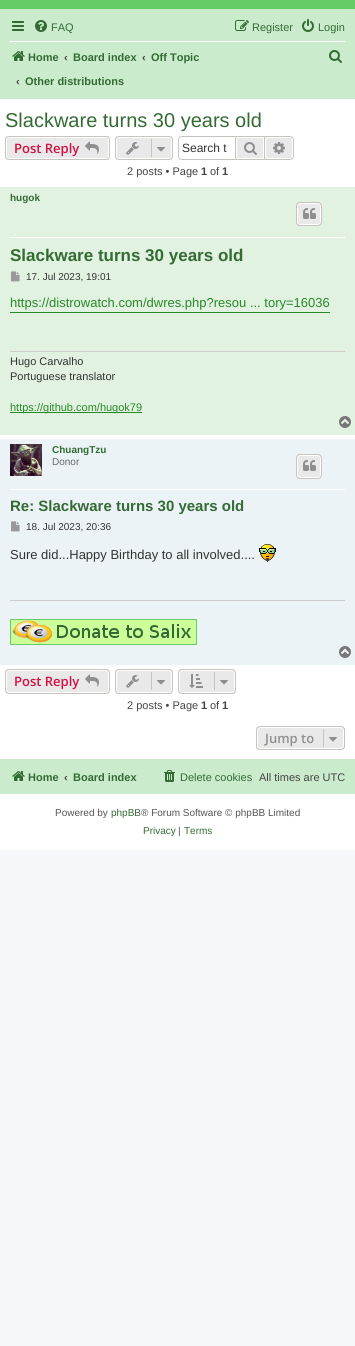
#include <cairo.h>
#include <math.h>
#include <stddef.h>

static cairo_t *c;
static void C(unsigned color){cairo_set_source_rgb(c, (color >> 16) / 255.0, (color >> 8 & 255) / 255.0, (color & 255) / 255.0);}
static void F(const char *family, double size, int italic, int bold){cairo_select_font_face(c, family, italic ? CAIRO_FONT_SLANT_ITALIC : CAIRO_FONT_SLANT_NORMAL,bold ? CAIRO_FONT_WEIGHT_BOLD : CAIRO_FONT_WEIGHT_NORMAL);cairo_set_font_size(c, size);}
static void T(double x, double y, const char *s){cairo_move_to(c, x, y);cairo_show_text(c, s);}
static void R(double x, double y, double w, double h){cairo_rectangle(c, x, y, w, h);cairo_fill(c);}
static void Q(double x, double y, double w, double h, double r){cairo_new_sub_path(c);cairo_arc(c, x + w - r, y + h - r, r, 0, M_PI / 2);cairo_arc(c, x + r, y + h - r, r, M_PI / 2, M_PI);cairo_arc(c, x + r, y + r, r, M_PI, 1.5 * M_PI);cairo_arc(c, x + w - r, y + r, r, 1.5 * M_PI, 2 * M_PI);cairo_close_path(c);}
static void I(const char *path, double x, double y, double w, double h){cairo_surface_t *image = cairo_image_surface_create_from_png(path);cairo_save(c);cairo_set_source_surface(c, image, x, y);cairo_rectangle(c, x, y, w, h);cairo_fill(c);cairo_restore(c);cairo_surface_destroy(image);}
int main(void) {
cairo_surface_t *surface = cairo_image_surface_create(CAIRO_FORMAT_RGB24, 355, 1346);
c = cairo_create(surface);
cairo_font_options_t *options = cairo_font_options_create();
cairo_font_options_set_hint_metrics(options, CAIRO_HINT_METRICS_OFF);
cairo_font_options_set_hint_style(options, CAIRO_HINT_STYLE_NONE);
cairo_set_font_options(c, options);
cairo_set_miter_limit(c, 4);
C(0xf5f7fa);
cairo_paint(c);
C(0xffffff);
R(0,99,355,751);
C(0x66cc66);
R(0,0,355,9);
C(0xcaebcc);
R(0,9,355,90);
I("1.png",12,21,12,10);
I("2.png",35,20,12,12);
F("Liberation Sans",11,0,0);
C(0x346b34);
T(51,31,"FAQ");
I("3.png",235,20,14,11);
T(252,31,"Register");
I("4.png",302,19,12,13);
T(318,31,"Login");
C(0xffffff);
R(10,41,335,1);
I("5.png",12,51,13,10);
F("Liberation Sans",11,0,1);
C(0x346b34);
T(28,61,"Home");
C(0x444444);
T(64,61,"‹");
C(0x346b34);
T(73,61,"Board index");
C(0x444444);
T(142,61,"‹");
C(0x346b34);
T(151,61,"Off Topic");
C(0x444444);
T(16,85,"‹");
C(0x346b34);
T(25,85,"Other distributions");
I("6.png",329,50,13,13);
F("Liberation Sans",20,0,0);
T(5,127,"Slackware turns 30 years old");
C(0xe9e9e9);
Q(5,136,105,24,4);
cairo_fill(c);
Q(6.5,137.5,102,21,2.5);
C(0xffffff);
cairo_set_line_width(c,1);
cairo_stroke(c);
Q(5.5,136.5,104,23,3.5);
C(0xc7c3bf);
cairo_stroke(c);
F("Open Sans SemiBold",13,0,0);
C(0xd31141);
T(14,153,"Post Reply");
I("7.png",85,141,14,13);
C(0xe9e9e9);
Q(115,136,58,24,4);
cairo_fill(c);
Q(116.5,137.5,55,21,2.5);
C(0xffffff);
cairo_stroke(c);
Q(115.5,136.5,57,23,3.5);
C(0xc7c3bf);
cairo_stroke(c);
I("8.png",126,142,13,13);
R(151,139,1,18);
I("9.png",157,147,8,5);
cairo_set_fill_rule(c,CAIRO_FILL_RULE_EVEN_ODD);
cairo_new_path(c);
cairo_move_to(c,182,136);
cairo_line_to(c,235,136);
cairo_line_to(c,235,160);
cairo_line_to(c,182,160);
cairo_curve_to(c,180,160,178,158,178,156);
cairo_line_to(c,178,140);
cairo_curve_to(c,178,138,180,136,182,136);
cairo_close_path(c);
cairo_move_to(c,182,137);
cairo_line_to(c,235,137);
cairo_line_to(c,235,159);
cairo_line_to(c,182,159);
cairo_curve_to(c,180,159,179,158,179,156);
cairo_line_to(c,179,140);
cairo_curve_to(c,179,138,180,137,182,137);
cairo_close_path(c);
cairo_fill(c);
F("Liberation Sans",12,0,0);
C(0x333333);
T(182,152,"Search t");
C(0xe9e9e9);
R(237,138,26,20);
cairo_rectangle(c,235.5,136.5,29,23);
C(0xc7c3bf);
cairo_stroke(c);
I("10.png",244,142,13,13);
C(0xe9e9e9);
cairo_new_path(c);
cairo_move_to(c,265.5,137.5);
cairo_line_to(c,290,137.5);
cairo_curve_to(c,291.5,137.5,292.5,138.5,292.5,140);
cairo_line_to(c,292.5,156);
cairo_curve_to(c,292.5,157.5,291.5,158.5,290,158.5);
cairo_line_to(c,265.5,158.5);
cairo_close_path(c);
cairo_fill_preserve(c);
C(0xffffff);
cairo_stroke(c);
C(0xc7c3bf);
cairo_new_path(c);
cairo_move_to(c,265,136);
cairo_line_to(c,290,136);
cairo_curve_to(c,292,136,294,138,294,140);
cairo_line_to(c,294,156);
cairo_curve_to(c,294,158,292,160,290,160);
cairo_line_to(c,265,160);
cairo_close_path(c);
cairo_move_to(c,265,137);
cairo_line_to(c,290,137);
cairo_curve_to(c,291.5,137,293,138.5,293,140);
cairo_line_to(c,293,156);
cairo_curve_to(c,293,157.5,291.5,159,290,159);
cairo_line_to(c,265,159);
cairo_close_path(c);
cairo_fill(c);
I("11.png",273,142,12,12);
F("Liberation Sans",11,0,0);
C(0x444444);
T(127,175,"2 posts • Page");
F("Liberation Sans",11,0,1);
T(201,175,"1");
F("Liberation Sans",11,0,0);
T(210,175,"of");
F("Liberation Sans",11,0,1);
T(222,175,"1");
C(0xe1f2e1);
R(0,187,355,248);
C(0xffffff);
R(10,237,335,1);
F("Liberation Sans",10,0,1);
C(0x346b34);
T(10,201,"hugok");
C(0xe9e9e9);
Q(296,202,26,24,4);
cairo_fill(c);
Q(297.5,203.5,23,21,2.5);
C(0xffffff);
cairo_stroke(c);
Q(296.5,202.5,25,23,3.5);
C(0xc7c3bf);
cairo_stroke(c);
I("12.png",303,208,13,11);
F("Liberation Sans",17,0,1);
C(0x346b34);
T(10,261,"Slackware turns 30 years old");
I("13.png",11,271,9,11);
F("Liberation Sans",10,0,0);
C(0x333333);
T(26,280,"17. Jul 2023, 19:01");
C(0x288928);
R(10,312,320,1);
F("Liberation Sans",13,0,0);
T(10,307,"https://distrowatch.com/dwres.php?resou ... tory=16036");
C(0xcccccc);
R(10,351,335,1);
F("Liberation Sans",11,0,0);
C(0x333333);
T(10,365,"Hugo Carvalho");
T(10,380,"Portuguese translator");
C(0x288928);
R(10,412,132,1);
T(10,411,"https://github.com/hugok79");
I("14.png",339,416,12,12);
C(0xecf3f7);
R(0,439,355,226);
C(0xffffff);
R(10,489,335,1);
I("15.png",10,444,32,32);
F("Liberation Sans",10,0,1);
C(0x346b34);
T(52,453,"ChuangTzu");
F("Liberation Sans",10,0,0);
C(0x666666);
T(52,465,"Donor");
C(0xe9e9e9);
Q(296,454,26,25,4);
cairo_fill(c);
Q(297.5,455.5,23,22,2.5);
C(0xffffff);
cairo_stroke(c);
Q(296.5,454.5,25,24,3.5);
C(0xc7c3bf);
cairo_stroke(c);
I("12.png",303,460,13,11);
F("Liberation Sans",15,0,1);
C(0x346b34);
T(10,511,"Re: Slackware turns 30 years old");
I("16.png",11,521,9,11);
F("Liberation Sans",10,0,0);
C(0x333333);
T(26,530,"18. Jul 2023, 20:36");
F("Liberation Sans",13,0,0);
T(10,559,"Sure did...Happy Birthday to all involved....");
I("17.png",259,544,17,18);
C(0xcccccc);
R(10,600,335,1);
I("18.png",10,619,187,26);
I("19.png",339,646,12,12);
C(0xe9e9e9);
Q(5,669,105,25,4);
cairo_fill(c);
Q(6.5,670.5,102,22,2.5);
C(0xffffff);
cairo_stroke(c);
Q(5.5,669.5,104,24,3.5);
C(0xc7c3bf);
cairo_stroke(c);
F("Open Sans SemiBold",13,0,0);
C(0xd31141);
T(14,686,"Post Reply");
I("7.png",85,674,14,13);
C(0xe9e9e9);
Q(115,669,58,25,4);
cairo_fill(c);
Q(116.5,670.5,55,22,2.5);
C(0xffffff);
cairo_stroke(c);
Q(115.5,669.5,57,24,3.5);
C(0xc7c3bf);
cairo_stroke(c);
I("8.png",126,675,13,13);
R(151,672,1,18);
I("9.png",157,680,8,5);
C(0xe9e9e9);
Q(178,669,58,25,4);
cairo_fill(c);
Q(179.5,670.5,55,22,2.5);
C(0xffffff);
cairo_stroke(c);
Q(178.5,669.5,57,24,3.5);
C(0xc7c3bf);
cairo_stroke(c);
I("20.png",189,674,14,14);
R(214,672,1,18);
I("9.png",220,680,8,5);
F("Liberation Sans",11,0,0);
C(0x444444);
T(127,709,"2 posts • Page");
F("Liberation Sans",11,0,1);
T(201,709,"1");
F("Liberation Sans",11,0,0);
T(210,709,"of");
F("Liberation Sans",11,0,1);
T(222,709,"1");
C(0xe9e9e9);
Q(256,726,89,24,4);
cairo_fill(c);
Q(257.5,727.5,86,21,2.5);
C(0xffffff);
cairo_stroke(c);
Q(256.5,726.5,88,23,3.5);
C(0xc7c3bf);
cairo_stroke(c);
F("Open Sans SemiBold",13,0,0);
C(0x8f8f8f);
T(265,743,"Jump to");
C(0xc7c3bf);
R(323,729,1,18);
I("9.png",329,737,8,5);
C(0xcaebcc);
R(0,759,355,35);
I("5.png",12,771,13,10);
F("Liberation Sans",11,0,1);
C(0x346b34);
T(28,781,"Home");
C(0x444444);
T(64,781,"‹");
C(0x346b34);
T(73,781,"Board index");
I("21.png",164,770,11,12);
F("Liberation Sans",11,0,0);
T(180,781,"Delete cookies");
C(0x444444);
T(259,781,"All times are UTC");
F("Liberation Sans",10,0,0);
C(0x555555);
T(55,816,"Powered by");
C(0x346b34);
T(111,816,"phpBB");
C(0x555555);
T(141,816,"® Forum Software © phpBB Limited");
C(0x346b34);
T(143,834,"Privacy");
C(0x555555);
T(178,834,"|");
C(0x346b34);
T(184,834,"Terms");
cairo_surface_write_to_png(surface, "o.png");
cairo_font_options_destroy(options);
cairo_destroy(c);
cairo_surface_destroy(surface);
return 0;
}
